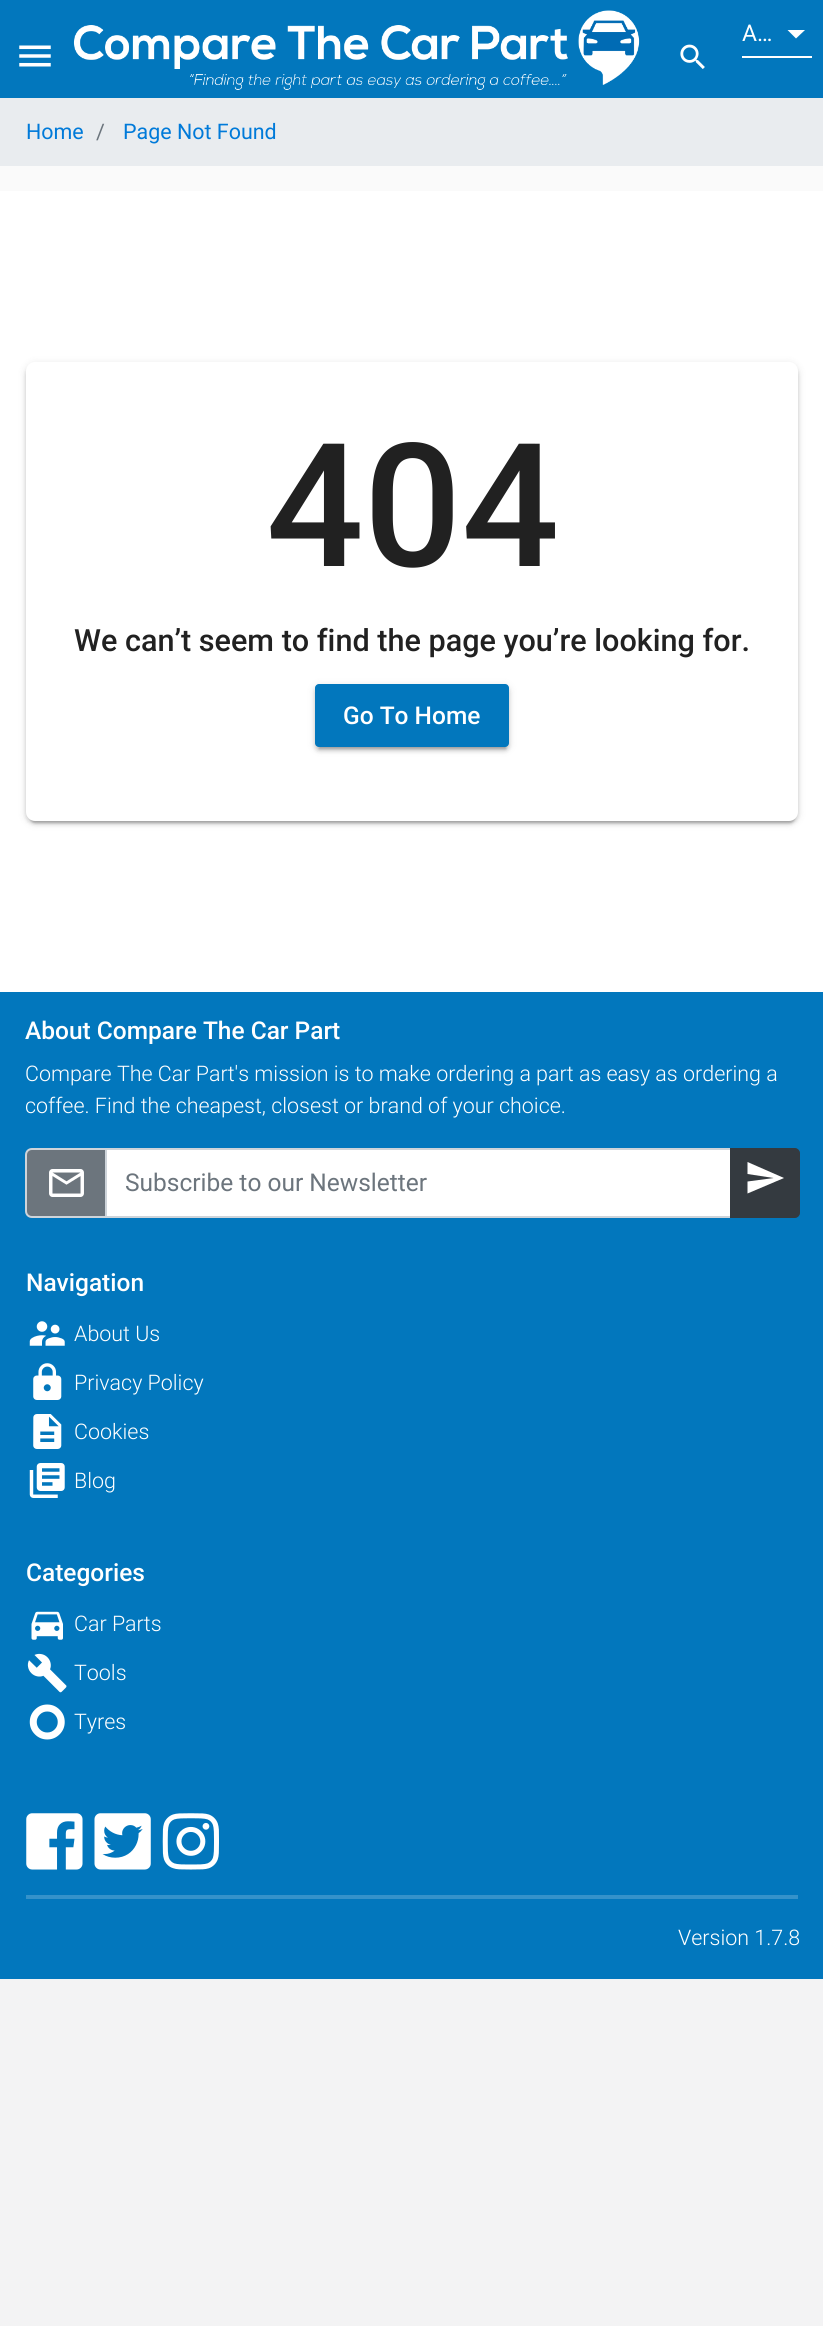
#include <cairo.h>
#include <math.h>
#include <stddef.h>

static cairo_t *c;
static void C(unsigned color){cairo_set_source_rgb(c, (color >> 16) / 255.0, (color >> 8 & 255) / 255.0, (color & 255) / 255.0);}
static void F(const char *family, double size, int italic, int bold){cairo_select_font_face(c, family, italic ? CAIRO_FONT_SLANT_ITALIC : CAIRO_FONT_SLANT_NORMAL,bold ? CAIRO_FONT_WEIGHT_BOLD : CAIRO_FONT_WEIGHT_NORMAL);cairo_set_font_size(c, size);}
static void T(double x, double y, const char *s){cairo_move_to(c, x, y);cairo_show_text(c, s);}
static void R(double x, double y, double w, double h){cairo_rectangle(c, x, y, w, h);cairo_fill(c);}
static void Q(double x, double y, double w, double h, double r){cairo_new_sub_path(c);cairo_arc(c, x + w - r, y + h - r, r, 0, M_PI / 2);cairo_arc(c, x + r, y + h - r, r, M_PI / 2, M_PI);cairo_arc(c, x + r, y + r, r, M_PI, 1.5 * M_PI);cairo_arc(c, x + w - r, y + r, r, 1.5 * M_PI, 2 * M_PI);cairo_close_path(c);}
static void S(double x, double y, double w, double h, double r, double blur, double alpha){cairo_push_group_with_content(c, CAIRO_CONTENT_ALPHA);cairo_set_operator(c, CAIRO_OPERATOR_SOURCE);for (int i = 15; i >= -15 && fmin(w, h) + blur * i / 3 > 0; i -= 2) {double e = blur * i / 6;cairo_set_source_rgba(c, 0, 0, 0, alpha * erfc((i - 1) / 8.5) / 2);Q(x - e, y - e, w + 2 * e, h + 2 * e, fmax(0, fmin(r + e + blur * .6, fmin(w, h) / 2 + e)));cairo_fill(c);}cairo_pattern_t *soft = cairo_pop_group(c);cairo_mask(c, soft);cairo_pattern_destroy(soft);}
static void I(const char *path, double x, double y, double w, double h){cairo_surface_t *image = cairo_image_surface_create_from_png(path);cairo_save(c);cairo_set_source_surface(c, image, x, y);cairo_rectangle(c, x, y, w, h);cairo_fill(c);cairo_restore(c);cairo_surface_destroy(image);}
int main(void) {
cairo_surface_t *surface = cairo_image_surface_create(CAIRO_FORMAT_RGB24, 823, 2326);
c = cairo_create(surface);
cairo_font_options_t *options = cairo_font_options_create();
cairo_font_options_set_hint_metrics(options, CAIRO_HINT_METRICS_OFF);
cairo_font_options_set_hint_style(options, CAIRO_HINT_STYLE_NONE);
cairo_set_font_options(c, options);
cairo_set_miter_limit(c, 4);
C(0xf3f3f4);
cairo_paint(c);
C(0xfafafa);
R(0,166,823,25);
C(0x0277bd);
R(0,0,823,98);
I("1.png",73,10,567,80);
F("Roboto",23,0,0);
C(0xffffff);
T(742,41,"A…");
cairo_new_path(c);
cairo_move_to(c,787.5,30);
cairo_line_to(c,805,30);
cairo_line_to(c,796,38.5);
cairo_close_path(c);
cairo_fill(c);
R(742,56,70,2);
I("2.png",19,45,32,22);
I("3.png",680,44,25,25);
C(0xe9ecef);
R(0,98,823,68);
F("Roboto",21.45,0,0);
C(0x007ad9);
T(26,139,"Home");
C(0x6c757d);
T(96,139,"/");
C(0x007ad9);
T(123,139,"Page Not Found");
C(0xffffff);
R(0,191,823,801);
C(0x000000);
S(26,364,772,459,9,4.5,.12);
S(26,366,772,458,9,2,.14);
S(30,371,765,452,5,1,.2);
C(0xffffff);
Q(26,362,772,459,9);
cairo_fill(c);
F("Roboto Medium",172,0,0);
C(0x212121);
T(266,566,"404");
F("Roboto Medium",30.6,0,0);
T(74,651,"We can’t seem to find the page you’re looking for.");
C(0x000000);
S(315,686,194,63,4,4.5,.12);
S(315,688,194,63,4,2,.14);
S(319,693,187,56,0,1,.2);
C(0x0277bd);
Q(315,684,194,63,4);
cairo_fill(c);
F("Roboto Medium",24.5,0,0);
C(0xffffff);
T(343,724,"Go To Home");
C(0x0277bd);
R(0,992,823,987);
C(0xffffff);
T(25,1039,"About Compare The Car Part");
F("Roboto Light",21.45,0,0);
T(25,1081,"Compare The Car Part's mission is to make ordering a part as easy as ordering a");
T(25,1113,"coffee. Find the cheapest, closest or brand of your choice.");
C(0x6c757d);
cairo_new_path(c);
cairo_move_to(c,32,1149);
cairo_line_to(c,106,1149);
cairo_line_to(c,106,1217);
cairo_line_to(c,32,1217);
cairo_curve_to(c,28.5,1217,26,1214.5,26,1211);
cairo_line_to(c,26,1155);
cairo_curve_to(c,26,1151.5,28.5,1149,32,1149);
cairo_close_path(c);
cairo_fill_preserve(c);
C(0xced4da);
cairo_stroke(c);
I("4.png",49,1169,35,28);
C(0xffffff);
cairo_rectangle(c,106,1149,625,68);
cairo_fill_preserve(c);
C(0xced4da);
cairo_stroke(c);
F("Roboto",24.5,0,0);
C(0x6c757d);
T(125,1191,"Subscribe to our Newsletter");
C(0x343a40);
cairo_new_path(c);
cairo_move_to(c,731,1149);
cairo_line_to(c,795,1149);
cairo_curve_to(c,797,1149,799,1151,799,1153);
cairo_line_to(c,799,1213);
cairo_curve_to(c,799,1215,797,1217,795,1217);
cairo_line_to(c,731,1217);
cairo_close_path(c);
cairo_fill_preserve(c);
cairo_stroke(c);
C(0xffffff);
cairo_new_path(c);
cairo_move_to(c,747.5,1193.5);
cairo_line_to(c,747.5,1181.5);
cairo_line_to(c,773.5,1178);
cairo_line_to(c,747.5,1174);
cairo_line_to(c,747.5,1162);
cairo_line_to(c,784,1178);
cairo_close_path(c);
cairo_fill(c);
F("Roboto Medium",24.5,0,0);
T(26,1291,"Navigation");
I("5.png",29,1321,36,25);
F("Roboto Light",21.45,0,0);
T(74,1341,"About Us");
I("6.png",33,1363,29,37);
T(74,1390,"Privacy Policy");
I("7.png",33,1414,29,35);
T(74,1439,"Cookies");
I("8.png",29,1463,36,35);
T(74,1488,"Blog");
F("Roboto Medium",24.5,0,0);
T(26,1581,"Categories");
I("9.png",31,1611,32,29);
F("Roboto Light",21.45,0,0);
T(74,1631,"Car Parts");
I("10.png",27,1653,40,40);
T(74,1680,"Tools");
I("11.png",29,1704,36,36);
T(74,1729,"Tyres");
I("12.png",26,1813,57,57);
I("13.png",94,1813,57,57);
I("14.png",162,1813,57,57);
C(0x3592ca);
R(26,1895,772,4);
C(0xffffff);
T(678,1945,"Version 1.7.8");
cairo_surface_write_to_png(surface, "o.png");
cairo_font_options_destroy(options);
cairo_destroy(c);
cairo_surface_destroy(surface);
return 0;
}
